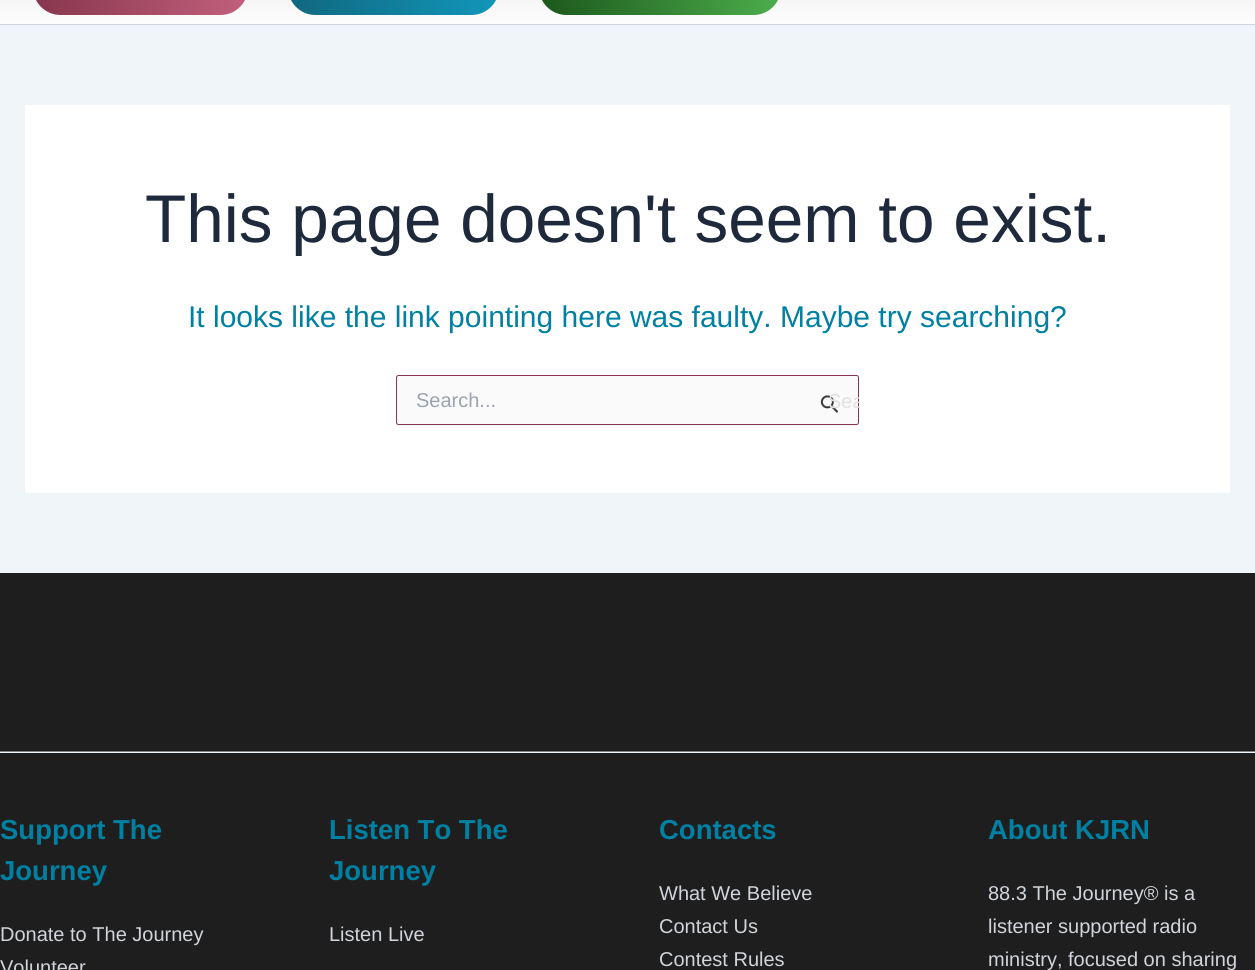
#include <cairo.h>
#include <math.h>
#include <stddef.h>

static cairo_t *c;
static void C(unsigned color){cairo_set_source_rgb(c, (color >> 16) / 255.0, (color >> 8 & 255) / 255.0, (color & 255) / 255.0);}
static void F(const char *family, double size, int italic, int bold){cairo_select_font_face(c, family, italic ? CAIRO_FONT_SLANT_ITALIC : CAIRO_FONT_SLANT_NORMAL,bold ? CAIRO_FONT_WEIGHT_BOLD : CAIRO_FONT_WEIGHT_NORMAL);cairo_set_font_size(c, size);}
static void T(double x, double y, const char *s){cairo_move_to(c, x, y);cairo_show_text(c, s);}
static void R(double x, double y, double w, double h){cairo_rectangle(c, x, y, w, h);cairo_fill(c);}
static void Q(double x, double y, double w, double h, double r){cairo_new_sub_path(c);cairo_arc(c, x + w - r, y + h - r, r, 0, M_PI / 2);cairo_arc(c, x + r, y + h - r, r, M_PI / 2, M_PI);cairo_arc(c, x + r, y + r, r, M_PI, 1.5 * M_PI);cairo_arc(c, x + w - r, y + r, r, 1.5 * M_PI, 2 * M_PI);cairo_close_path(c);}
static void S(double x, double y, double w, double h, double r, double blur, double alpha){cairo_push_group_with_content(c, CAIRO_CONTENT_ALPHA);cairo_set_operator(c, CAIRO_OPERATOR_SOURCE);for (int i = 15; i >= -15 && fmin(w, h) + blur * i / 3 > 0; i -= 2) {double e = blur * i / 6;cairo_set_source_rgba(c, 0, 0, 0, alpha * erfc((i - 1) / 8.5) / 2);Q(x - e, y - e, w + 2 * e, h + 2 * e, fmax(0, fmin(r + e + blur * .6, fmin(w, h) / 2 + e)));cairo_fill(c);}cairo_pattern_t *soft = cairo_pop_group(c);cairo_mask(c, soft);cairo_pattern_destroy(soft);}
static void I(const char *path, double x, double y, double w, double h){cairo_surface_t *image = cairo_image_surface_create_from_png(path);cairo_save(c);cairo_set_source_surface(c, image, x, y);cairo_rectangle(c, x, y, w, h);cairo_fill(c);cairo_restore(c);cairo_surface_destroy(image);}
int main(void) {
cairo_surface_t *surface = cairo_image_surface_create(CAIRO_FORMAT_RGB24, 1255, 970);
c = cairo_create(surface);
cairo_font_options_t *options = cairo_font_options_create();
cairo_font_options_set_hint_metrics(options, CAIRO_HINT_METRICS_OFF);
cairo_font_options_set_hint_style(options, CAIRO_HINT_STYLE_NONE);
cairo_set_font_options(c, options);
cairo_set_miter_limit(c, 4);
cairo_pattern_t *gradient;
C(0xf0f5fa);
cairo_paint(c);
gradient = cairo_pattern_create_linear(628,-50,628,24);
cairo_pattern_add_color_stop_rgba(gradient,0,0.898,0.898,0.898,1);
cairo_pattern_add_color_stop_rgba(gradient,1,1,0.996,0.996,1);
cairo_set_source(c,gradient);
cairo_pattern_destroy(gradient);
R(0,0,1255,24);
C(0xd1d5db);
R(0,24,1255,1);
gradient = cairo_pattern_create_linear(33,-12,248,-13);
cairo_pattern_add_color_stop_rgba(gradient,0,0.529,0.212,0.306,1);
cairo_pattern_add_color_stop_rgba(gradient,1,0.761,0.376,0.49,1);
cairo_set_source(c,gradient);
cairo_pattern_destroy(gradient);
Q(33,-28,215,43,27.5);
cairo_fill(c);
gradient = cairo_pattern_create_linear(288,-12,499,-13);
cairo_pattern_add_color_stop_rgba(gradient,0,0.067,0.404,0.494,1);
cairo_pattern_add_color_stop_rgba(gradient,1,0.067,0.592,0.733,1);
cairo_set_source(c,gradient);
cairo_pattern_destroy(gradient);
Q(288,-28,211,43,27.5);
cairo_fill(c);
gradient = cairo_pattern_create_linear(539,-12,781,-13);
cairo_pattern_add_color_stop_rgba(gradient,0,0.11,0.341,0.11,1);
cairo_pattern_add_color_stop_rgba(gradient,1,0.298,0.682,0.298,1);
cairo_set_source(c,gradient);
cairo_pattern_destroy(gradient);
Q(539,-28,242,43,27.5);
cairo_fill(c);
C(0xffffff);
R(25,105,1205,388);
F("Liberation Sans",67.5,0,0);
C(0x1e293b);
T(145,242,"This page doesn't seem to exist.");
F("Liberation Sans",30,0,0);
C(0x0080a2);
T(188,327,"It looks like the link pointing here was faulty. Maybe try searching?");
C(0x000000);
S(396,376,463,50,2.5,1,.05);
C(0xfafafa);
Q(396.5,375.5,462,49,2);
cairo_fill_preserve(c);
C(0x87364e);
cairo_set_line_width(c,1);
cairo_stroke(c);
F("Liberation Sans",20,0,0);
C(0x9ca3af);
T(416,407,"Search...");
I("1.png",820,395,18,18);
cairo_save(c);
Q(803,375,56,53,2.5);
cairo_clip(c);
C(0xe3e0e1);
T(828,408,"Sea");
cairo_restore(c);
C(0x1e1e1e);
R(0,573,1255,178);
R(0,753,1255,217);
C(0x838485);
R(0,751,1255,1);
F("Liberation Sans",27.5,0,1);
C(0x0080a2);
T(0,839,"Support The");
T(0,880,"Journey");
F("Liberation Sans",20,0,0);
C(0xd1d5db);
T(0,941,"Donate to The Journey");
T(0,974,"Volunteer");
F("Liberation Sans",27.5,0,1);
C(0x0080a2);
T(329,839,"Listen To The");
T(329,880,"Journey");
F("Liberation Sans",20,0,0);
C(0xd1d5db);
T(329,941,"Listen Live");
F("Liberation Sans",27.5,0,1);
C(0x0080a2);
T(659,839,"Contacts");
F("Liberation Sans",20,0,0);
C(0xd1d5db);
T(659,900,"What We Believe");
T(659,933,"Contact Us");
T(659,966,"Contest Rules");
F("Liberation Sans",27.5,0,1);
C(0x0080a2);
T(988,839,"About KJRN");
F("Liberation Sans",20,0,0);
C(0xd1d5db);
T(988,900,"88.3 The Journey® is a");
T(988,933,"listener supported radio");
T(988,966,"ministry, focused on sharing");
cairo_surface_write_to_png(surface, "o.png");
cairo_font_options_destroy(options);
cairo_destroy(c);
cairo_surface_destroy(surface);
return 0;
}
